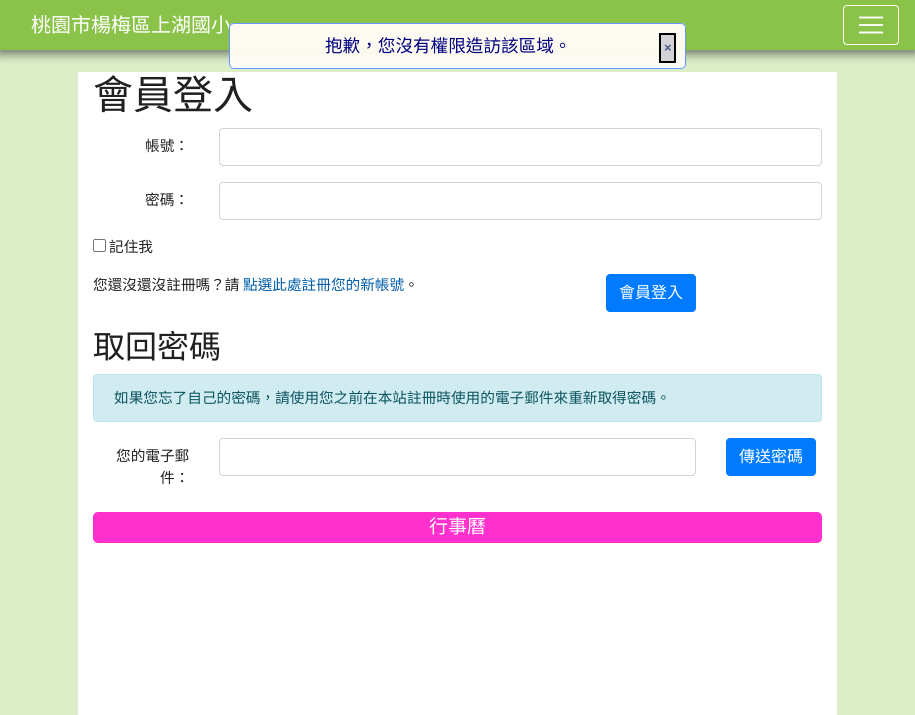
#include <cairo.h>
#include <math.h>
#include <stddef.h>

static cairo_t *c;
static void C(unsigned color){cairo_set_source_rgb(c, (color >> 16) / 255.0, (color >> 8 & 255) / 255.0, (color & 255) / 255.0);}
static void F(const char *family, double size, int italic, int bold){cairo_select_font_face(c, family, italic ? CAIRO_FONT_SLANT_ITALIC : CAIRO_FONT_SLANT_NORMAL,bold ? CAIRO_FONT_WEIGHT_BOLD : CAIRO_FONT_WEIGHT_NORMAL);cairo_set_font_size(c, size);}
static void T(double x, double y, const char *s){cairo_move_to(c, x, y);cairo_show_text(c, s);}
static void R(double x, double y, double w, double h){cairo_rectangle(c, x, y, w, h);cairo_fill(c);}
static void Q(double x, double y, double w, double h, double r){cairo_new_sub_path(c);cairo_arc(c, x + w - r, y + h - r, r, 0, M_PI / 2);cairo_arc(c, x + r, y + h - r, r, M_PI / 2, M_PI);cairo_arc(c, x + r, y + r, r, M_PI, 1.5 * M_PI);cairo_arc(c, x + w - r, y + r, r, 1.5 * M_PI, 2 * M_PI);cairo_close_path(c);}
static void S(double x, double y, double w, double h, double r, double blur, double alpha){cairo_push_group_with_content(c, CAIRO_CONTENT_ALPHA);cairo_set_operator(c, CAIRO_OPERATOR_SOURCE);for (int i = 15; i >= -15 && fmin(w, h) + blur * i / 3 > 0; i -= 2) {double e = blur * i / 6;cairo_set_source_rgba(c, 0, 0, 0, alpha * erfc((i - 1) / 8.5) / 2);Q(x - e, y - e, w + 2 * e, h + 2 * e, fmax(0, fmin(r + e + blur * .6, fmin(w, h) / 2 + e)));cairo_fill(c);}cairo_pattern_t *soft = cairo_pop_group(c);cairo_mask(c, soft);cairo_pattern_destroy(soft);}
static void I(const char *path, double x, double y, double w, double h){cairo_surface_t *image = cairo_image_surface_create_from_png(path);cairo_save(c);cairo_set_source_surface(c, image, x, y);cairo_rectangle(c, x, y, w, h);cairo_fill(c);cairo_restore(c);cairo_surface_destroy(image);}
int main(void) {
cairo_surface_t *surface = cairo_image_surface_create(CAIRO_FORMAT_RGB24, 915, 715);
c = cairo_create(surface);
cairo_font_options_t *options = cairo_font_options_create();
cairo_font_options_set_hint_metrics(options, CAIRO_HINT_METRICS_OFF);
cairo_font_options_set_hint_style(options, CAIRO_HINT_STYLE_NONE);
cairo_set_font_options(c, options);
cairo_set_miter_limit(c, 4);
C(0xdcedc8);
cairo_paint(c);
C(0x000000);
S(-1,2,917,52,0,5,.5);
C(0x8bc34a);
R(0,0,915,50);
F("Noto Sans CJK TC",20,0,0);
C(0xffffff);
T(31,32,"桃園市楊梅區上湖國小");
Q(843.5,5.5,55,39,3.5);
cairo_set_line_width(c,1);
cairo_stroke(c);
I("1.png",858,16,26,18);
I("2.png",229,23,457,46);
Q(229.5,23.5,456,45,4.5);
C(0x6699ff);
cairo_stroke(c);
F("Noto Sans CJK TC",17.6,0,0);
C(0x000080);
T(325,52,"抱歉，您沒有權限造訪該區域。");
C(0xd3d2d6);
cairo_rectangle(c,660,34,15,28);
cairo_fill_preserve(c);
C(0x000000);
cairo_set_line_width(c,2);
cairo_stroke(c);
F("Liberation Sans",13,0,1);
C(0x405a80);
T(664,52,"×");
C(0xffffff);
R(78,72,759,643);
F("Noto Sans CJK TC",40,0,0);
C(0x202020);
T(93,109,"會員登入");
F("Noto Sans CJK TC",14.65,0,0);
T(145,151,"帳號：");
Q(219.5,128.5,602,37,3.5);
C(0xced4da);
cairo_set_line_width(c,1);
cairo_stroke(c);
C(0x202020);
T(145,205,"密碼：");
Q(219.5,182.5,602,37,3.5);
C(0xced4da);
cairo_stroke(c);
Q(93.5,239.5,12,12,1.5);
C(0x767676);
cairo_stroke(c);
C(0x202020);
T(109,252,"記住我");
T(93,290,"您還沒還沒註冊嗎？請");
C(0x005ca8);
T(243,290,"點選此處註冊您的新帳號");
C(0x202020);
T(404,290,"。");
C(0x007bff);
Q(606.5,274.5,89,37,3.5);
cairo_fill_preserve(c);
cairo_stroke(c);
F("Noto Sans CJK TC",16,0,0);
C(0xffffff);
T(619,298,"會員登入");
F("Noto Sans CJK TC",32,0,0);
C(0x202020);
T(93,358,"取回密碼");
C(0xd1ecf1);
Q(93.5,374.5,728,47,3.5);
cairo_fill_preserve(c);
C(0xbee5eb);
cairo_stroke(c);
F("Noto Sans CJK TC",14.65,0,0);
C(0x0c5460);
T(114,403,"如果您忘了自己的密碼，請使用您之前在本站註冊時使用的電子郵件來重新取得密碼。");
C(0x202020);
T(116,461,"您的電子郵");
T(160,483,"件：");
Q(219.5,438.5,476,37,3.5);
C(0xced4da);
cairo_stroke(c);
C(0x007bff);
Q(726.5,438.5,89,37,3.5);
cairo_fill_preserve(c);
cairo_stroke(c);
F("Noto Sans CJK TC",16,0,0);
C(0xffffff);
T(739,462,"傳送密碼");
C(0xff30ce);
Q(93,512,729,31,5);
cairo_fill(c);
F("Noto Sans CJK TC",19,0,0);
C(0xffffff);
T(429,533,"行事曆");
cairo_surface_write_to_png(surface, "o.png");
cairo_font_options_destroy(options);
cairo_destroy(c);
cairo_surface_destroy(surface);
return 0;
}
